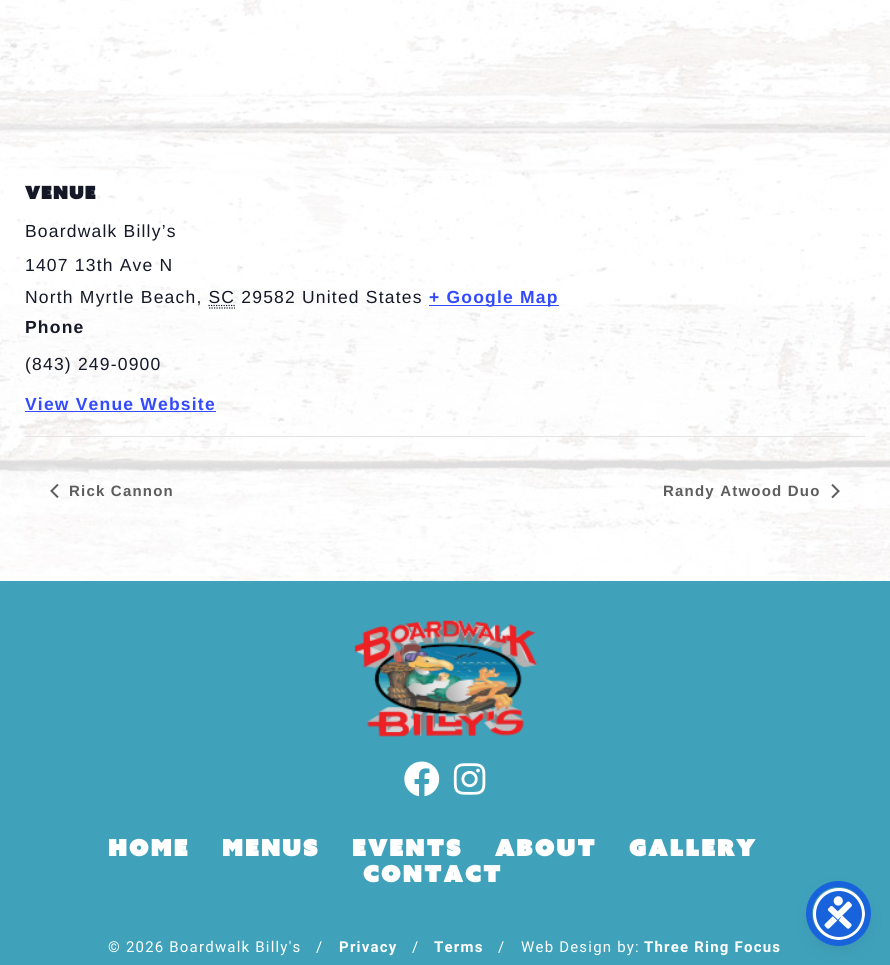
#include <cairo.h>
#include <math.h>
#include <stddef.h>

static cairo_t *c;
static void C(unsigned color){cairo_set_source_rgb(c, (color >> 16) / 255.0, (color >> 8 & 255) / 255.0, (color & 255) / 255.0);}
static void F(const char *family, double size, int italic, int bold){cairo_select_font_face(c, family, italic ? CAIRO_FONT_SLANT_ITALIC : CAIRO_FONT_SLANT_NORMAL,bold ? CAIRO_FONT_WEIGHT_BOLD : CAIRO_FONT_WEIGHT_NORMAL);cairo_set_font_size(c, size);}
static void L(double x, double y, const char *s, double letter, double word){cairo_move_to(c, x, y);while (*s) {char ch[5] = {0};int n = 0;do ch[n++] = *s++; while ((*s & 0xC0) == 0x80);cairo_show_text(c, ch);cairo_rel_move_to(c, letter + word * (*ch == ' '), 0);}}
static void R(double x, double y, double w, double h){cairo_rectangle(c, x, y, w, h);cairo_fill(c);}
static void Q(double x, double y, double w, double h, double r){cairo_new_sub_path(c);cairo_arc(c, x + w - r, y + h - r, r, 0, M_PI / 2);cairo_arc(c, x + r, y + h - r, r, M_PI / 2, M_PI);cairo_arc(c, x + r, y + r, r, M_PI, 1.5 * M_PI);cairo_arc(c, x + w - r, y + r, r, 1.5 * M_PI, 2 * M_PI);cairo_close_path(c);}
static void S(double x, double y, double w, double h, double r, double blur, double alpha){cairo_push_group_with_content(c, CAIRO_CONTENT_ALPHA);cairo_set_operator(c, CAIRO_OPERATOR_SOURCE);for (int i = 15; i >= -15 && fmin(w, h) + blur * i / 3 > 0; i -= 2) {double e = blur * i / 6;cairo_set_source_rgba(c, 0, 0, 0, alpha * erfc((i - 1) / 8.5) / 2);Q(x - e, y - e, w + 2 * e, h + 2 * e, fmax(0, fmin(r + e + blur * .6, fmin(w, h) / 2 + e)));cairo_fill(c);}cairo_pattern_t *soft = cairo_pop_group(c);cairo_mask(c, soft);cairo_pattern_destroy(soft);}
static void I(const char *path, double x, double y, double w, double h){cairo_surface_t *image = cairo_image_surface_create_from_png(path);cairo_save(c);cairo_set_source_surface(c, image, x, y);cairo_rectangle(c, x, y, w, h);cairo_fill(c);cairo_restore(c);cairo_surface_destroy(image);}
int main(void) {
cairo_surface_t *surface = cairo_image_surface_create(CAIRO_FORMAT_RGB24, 890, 965);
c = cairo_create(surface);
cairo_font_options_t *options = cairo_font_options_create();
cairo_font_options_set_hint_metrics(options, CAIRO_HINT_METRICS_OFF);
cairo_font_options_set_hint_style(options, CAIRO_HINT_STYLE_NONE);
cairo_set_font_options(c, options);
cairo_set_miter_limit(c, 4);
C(0xffffff);
cairo_paint(c);
I("1.png",0,0,890,581);
F("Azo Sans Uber",17.5,0,1);
C(0x141827);
L(25,199,"VENUE",1.25,0);
F("Liberation Sans",17.5,0,0);
L(25,237,"Boardwalk Billy’s",1.2,0);
L(25,271,"1407 13th Ave N",1.2,0);
L(25,303,"North Myrtle Beach, SC 29582 United States",1.2,0);
cairo_new_path(c);
cairo_move_to(c,209,308);
cairo_line_to(c,235,308);
cairo_move_to(c,208.5,305.5);
cairo_line_to(c,235.5,305.5);
cairo_set_line_width(c,1.2);
cairo_set_dash(c,(double[]){1.25,1.25},2,0);
cairo_stroke(c);
C(0x334aff);
R(429,305,130,1);
F("Liberation Sans",17.5,0,1);
L(429,303,"+ Google Map",1.2,0);
C(0x141827);
L(25,333,"Phone",1.2,0);
F("Liberation Sans",17.5,0,0);
L(25,370,"(843) 249-0900",1.2,0);
F("Liberation Sans",17.5,0,1);
C(0x334aff);
L(25,410,"View Venue Website",1.2,0);
R(25,411,191,1);
C(0xe4e4e4);
R(25,436,840,1);
I("2.png",50,484,9,14);
F("Liberation Sans",15,0,1);
C(0x5d5d5d);
L(69,496,"Rick Cannon",1.2,0);
L(663,496,"Randy Atwood Duo",1.2,0);
I("3.png",831,484,9,15);
C(0x3fa2ba);
R(0,581,890,384);
I("4.png",354,620,183,117);
I("5.png",404,761,36,36);
I("6.png",453,763,33,32);
F("Azo Sans Uber",22.5,0,1);
C(0xffffff);
L(108,856,"Home",2.25,0);
L(222,856,"Menus",2.25,0);
L(352,856,"Events",2.25,0);
L(495,856,"About",2.25,0);
L(629,856,"Gallery",2.25,0);
L(363,882,"Contact",2.25,0);
F("Roboto",15,0,0);
L(108,952,"© 2026 Boardwalk Billy's   /",1.2,0);
F("Roboto",15,0,1);
L(339,952,"Privacy",1.2,0);
F("Roboto",15,0,0);
L(412,952,"/",1.2,0);
F("Roboto",15,0,1);
L(434,952,"Terms",1.2,0);
F("Roboto",15,0,0);
L(498,952,"/",1.2,0);
L(521,952,"Web Design by:",1.2,0);
F("Roboto",15,0,1);
L(644,952,"Three Ring Focus",1.2,0);
C(0x5d6494);
S(813,890,52,53,26,2.5,.2);
C(0x252c61);
S(813,894,52,52,26,9.5,.15);
C(0x1863dc);
cairo_arc(c,839,914,24.5,0,2 * M_PI);
cairo_fill_preserve(c);
C(0xffffff);
cairo_set_line_width(c,3);
cairo_set_dash(c,NULL,0,0);
cairo_stroke(c);
cairo_arc(c,838.5,913.5,29.5,0,2 * M_PI);
C(0x1863dc);
cairo_set_line_width(c,6);
cairo_stroke(c);
I("7.png",824,896,28,33);
cairo_surface_write_to_png(surface, "o.png");
cairo_font_options_destroy(options);
cairo_destroy(c);
cairo_surface_destroy(surface);
return 0;
}
